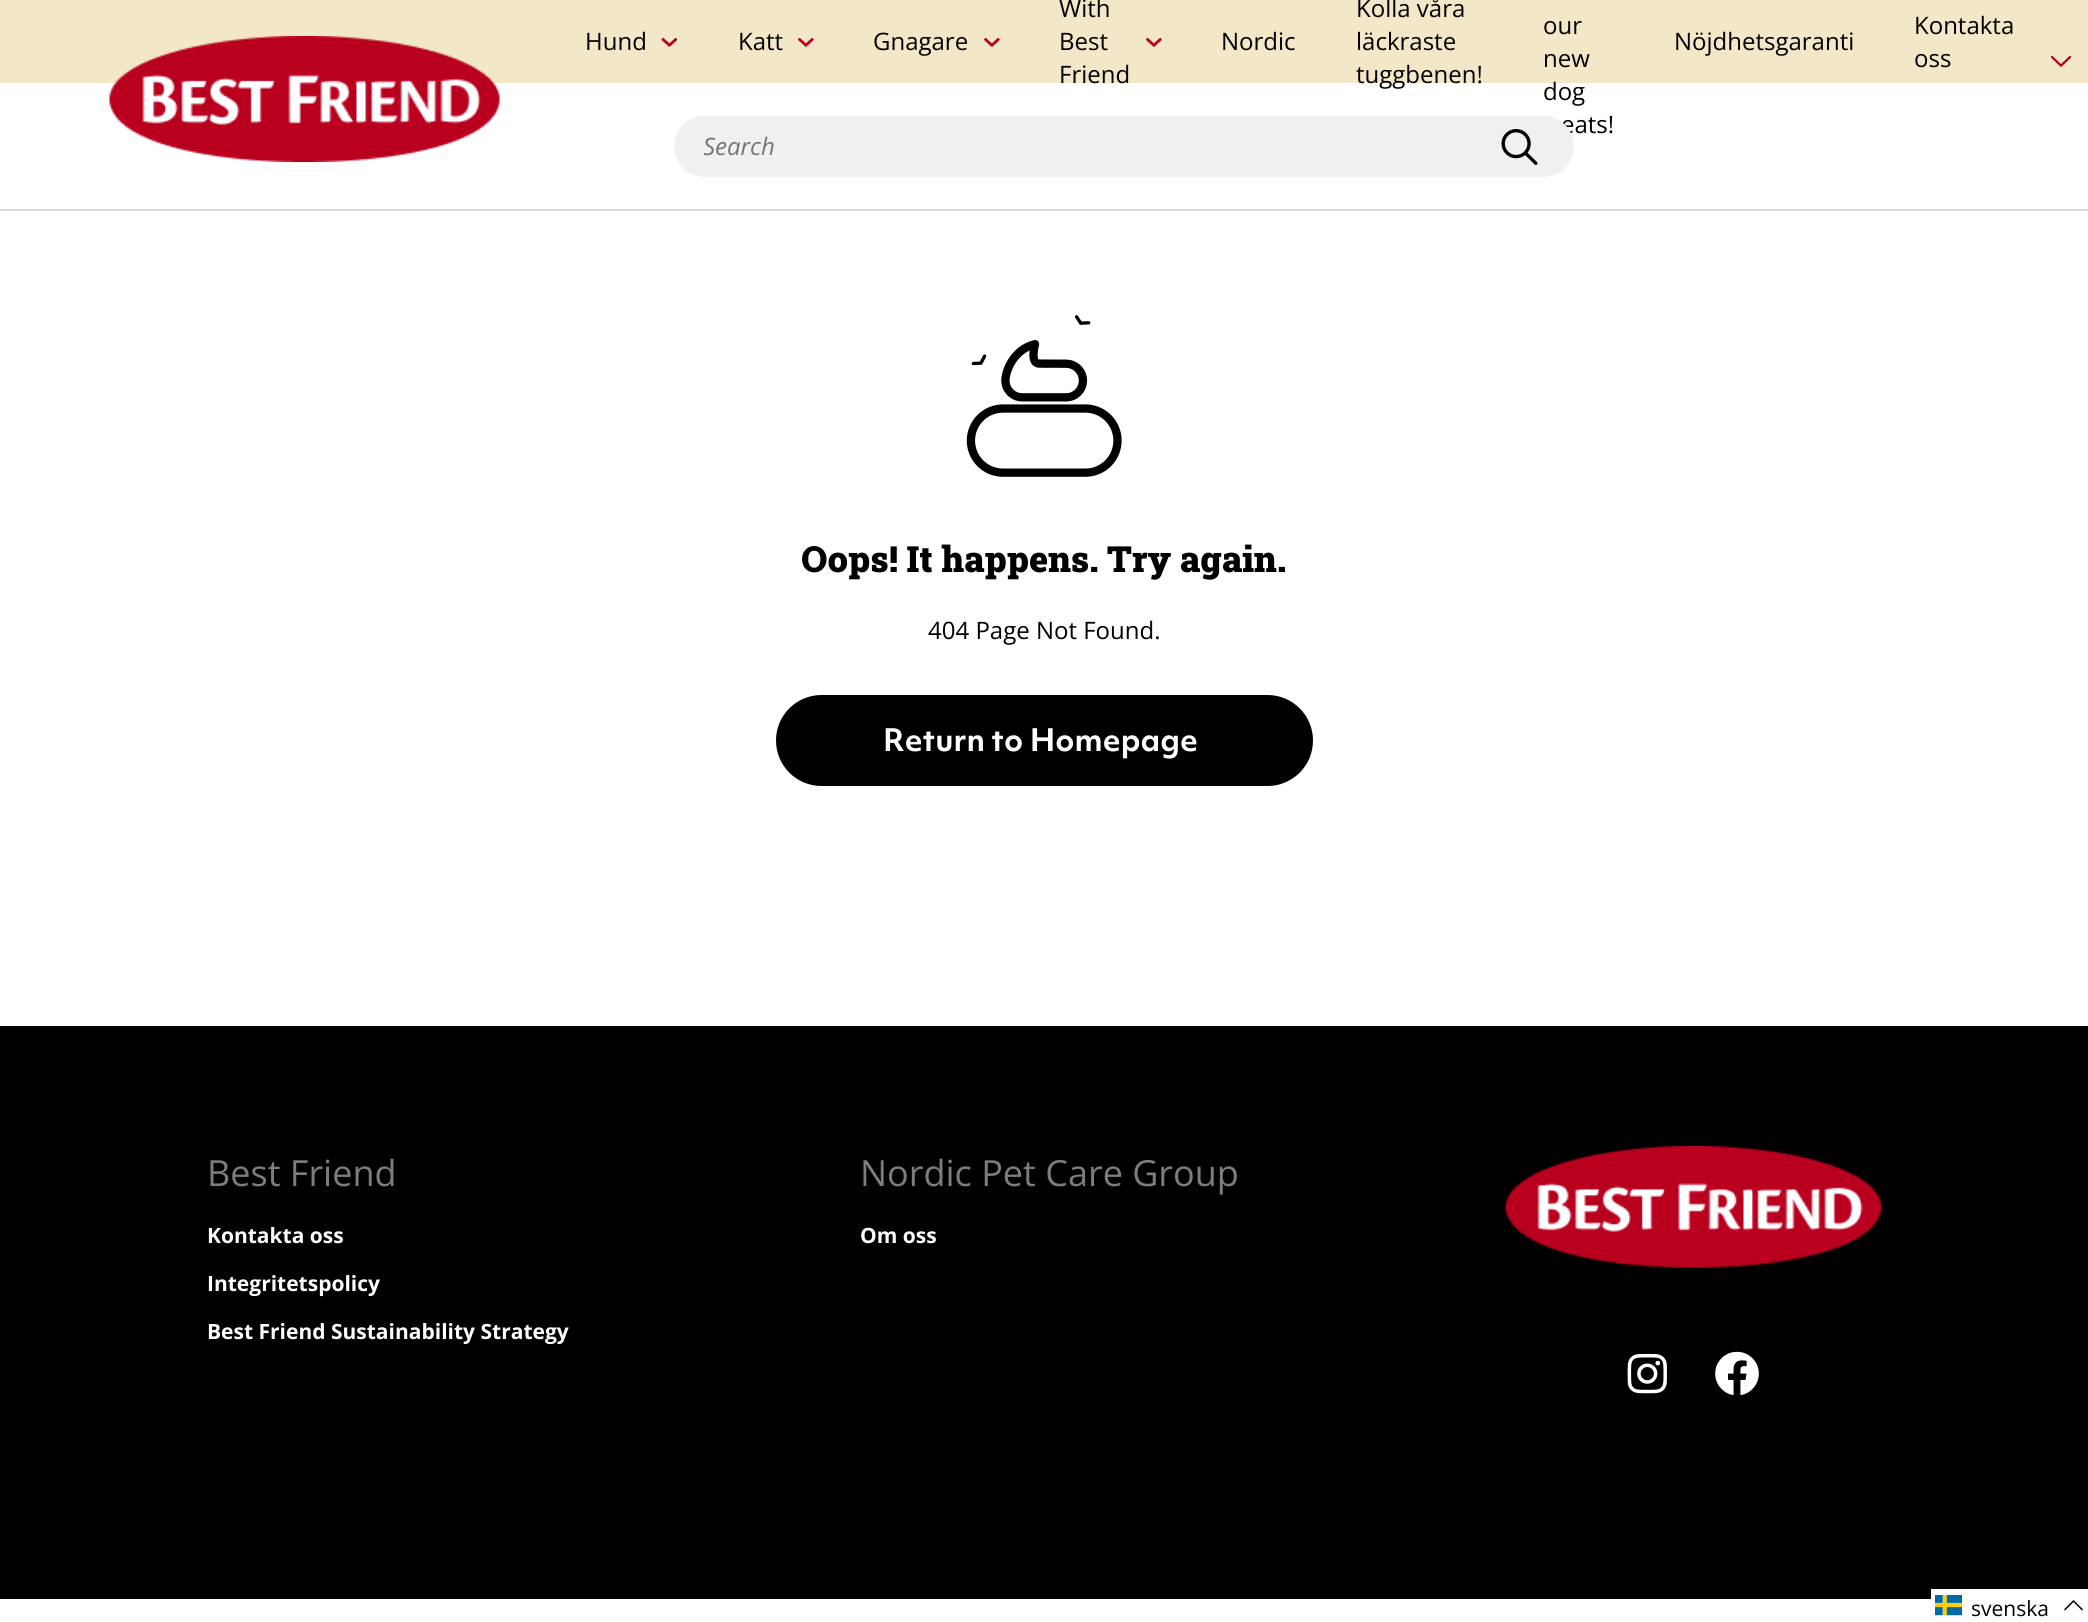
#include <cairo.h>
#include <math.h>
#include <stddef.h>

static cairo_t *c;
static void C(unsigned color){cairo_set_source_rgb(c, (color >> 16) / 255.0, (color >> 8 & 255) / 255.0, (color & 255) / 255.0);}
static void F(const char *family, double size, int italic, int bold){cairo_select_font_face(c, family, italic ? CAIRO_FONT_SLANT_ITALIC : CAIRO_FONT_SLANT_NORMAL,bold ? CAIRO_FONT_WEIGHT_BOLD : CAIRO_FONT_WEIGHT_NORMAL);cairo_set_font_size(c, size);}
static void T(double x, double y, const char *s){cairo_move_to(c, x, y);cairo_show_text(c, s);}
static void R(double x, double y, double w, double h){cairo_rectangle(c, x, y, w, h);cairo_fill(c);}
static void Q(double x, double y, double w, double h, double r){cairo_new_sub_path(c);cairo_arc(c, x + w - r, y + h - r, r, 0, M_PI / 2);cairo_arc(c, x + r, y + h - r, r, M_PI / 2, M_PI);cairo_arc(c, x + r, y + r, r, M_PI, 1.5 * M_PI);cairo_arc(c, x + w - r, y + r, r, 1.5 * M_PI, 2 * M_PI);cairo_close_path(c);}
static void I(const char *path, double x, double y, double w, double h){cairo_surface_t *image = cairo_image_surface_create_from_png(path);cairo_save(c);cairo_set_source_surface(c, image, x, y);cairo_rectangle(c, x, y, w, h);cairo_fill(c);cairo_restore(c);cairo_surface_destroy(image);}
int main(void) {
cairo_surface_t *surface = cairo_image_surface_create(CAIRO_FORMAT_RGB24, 2088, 1622);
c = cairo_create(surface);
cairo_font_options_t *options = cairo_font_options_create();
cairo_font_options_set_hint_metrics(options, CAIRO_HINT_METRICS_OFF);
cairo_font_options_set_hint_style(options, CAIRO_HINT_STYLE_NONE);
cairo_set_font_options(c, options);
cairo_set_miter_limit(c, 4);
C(0xffffff);
cairo_paint(c);
C(0xf2e7c7);
R(0,0,2088,83);
I("1.png",109,36,391,126);
F("Open Sans",24,0,0);
C(0x000000);
T(585,50,"Hund");
I("2.png",661,37,17,10);
T(738,50,"Katt");
I("3.png",798,37,16,10);
T(873,50,"Gnagare");
I("3.png",984,37,16,10);
T(1059,17,"With");
T(1059,50,"Best");
T(1059,83,"Friend");
I("3.png",1146,37,16,10);
T(1221,50,"Nordic");
T(1356,17,"Kolla våra");
T(1356,50,"läckraste");
T(1356,83,"tuggbenen!");
T(1543,34,"our");
T(1543,67,"new");
T(1543,100,"dog");
T(1561,133,"eats!");
T(1674,50,"Nöjdhetsgaranti");
T(1914,34,"Kontakta");
T(1914,67,"oss");
I("4.png",2050,55,22,12);
C(0xd9d9d9);
R(0,209,2088,2);
C(0xeef0f1);
Q(674,116,900,61,30.5);
cairo_fill(c);
cairo_save(c);
cairo_rectangle(c,704,131,795,33);
cairo_clip(c);
F("Open Sans",24,1,0);
C(0x757575);
T(703,155,"Search");
cairo_restore(c);
I("5.png",1501,129,37,36);
I("6.png",966,315,156,162);
F("Roboto Slab Black",36,0,0);
C(0x000000);
T(801,572,"Oops! It happens. Try again.");
F("Open Sans",24,0,0);
T(928,639,"404 Page Not Found.");
Q(776,695,537,91,45.5);
cairo_fill(c);
F("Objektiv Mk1",30,0,1);
C(0xffffff);
T(883,751,"Return to Homepage");
C(0x000000);
R(0,1026,2088,573);
F("Open Sans",36,0,0);
C(0x7d7d7d);
T(207,1186,"Best Friend");
F("Open Sans",21,0,1);
C(0xffffff);
T(207,1243,"Kontakta oss");
T(207,1291,"Integritetspolicy");
T(207,1339,"Best Friend Sustainability Strategy");
F("Open Sans",36,0,0);
C(0x7d7d7d);
T(860,1186,"Nordic Pet Care Group");
F("Open Sans",21,0,1);
C(0xffffff);
T(860,1243,"Om oss");
I("7.png",1506,1146,375,122);
I("8.png",1627,1353,40,41);
I("9.png",1715,1351,44,45);
R(1931,1589,157,10);
I("10.png",1935,1595,27,21);
F("Open Sans",21,0,0);
C(0x000000);
T(1971,1616,"svenska");
cairo_new_path(c);
cairo_move_to(c,2082.5,1610);
cairo_line_to(c,2073.5,1601);
cairo_line_to(c,2064.5,1610);
cairo_set_line_width(c,1.5);
cairo_stroke(c);
cairo_surface_write_to_png(surface, "o.png");
cairo_font_options_destroy(options);
cairo_destroy(c);
cairo_surface_destroy(surface);
return 0;
}
